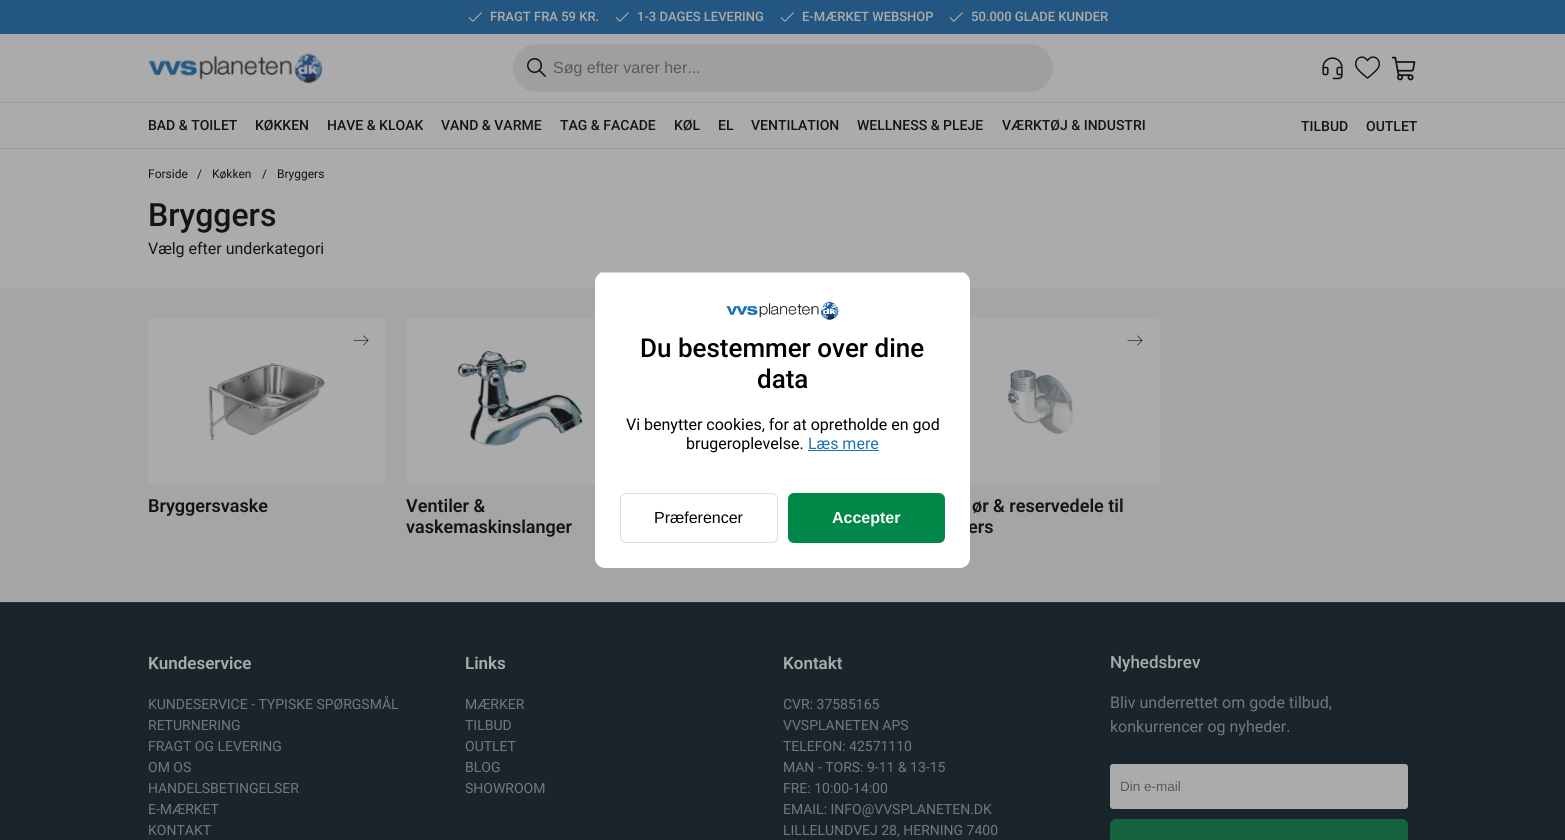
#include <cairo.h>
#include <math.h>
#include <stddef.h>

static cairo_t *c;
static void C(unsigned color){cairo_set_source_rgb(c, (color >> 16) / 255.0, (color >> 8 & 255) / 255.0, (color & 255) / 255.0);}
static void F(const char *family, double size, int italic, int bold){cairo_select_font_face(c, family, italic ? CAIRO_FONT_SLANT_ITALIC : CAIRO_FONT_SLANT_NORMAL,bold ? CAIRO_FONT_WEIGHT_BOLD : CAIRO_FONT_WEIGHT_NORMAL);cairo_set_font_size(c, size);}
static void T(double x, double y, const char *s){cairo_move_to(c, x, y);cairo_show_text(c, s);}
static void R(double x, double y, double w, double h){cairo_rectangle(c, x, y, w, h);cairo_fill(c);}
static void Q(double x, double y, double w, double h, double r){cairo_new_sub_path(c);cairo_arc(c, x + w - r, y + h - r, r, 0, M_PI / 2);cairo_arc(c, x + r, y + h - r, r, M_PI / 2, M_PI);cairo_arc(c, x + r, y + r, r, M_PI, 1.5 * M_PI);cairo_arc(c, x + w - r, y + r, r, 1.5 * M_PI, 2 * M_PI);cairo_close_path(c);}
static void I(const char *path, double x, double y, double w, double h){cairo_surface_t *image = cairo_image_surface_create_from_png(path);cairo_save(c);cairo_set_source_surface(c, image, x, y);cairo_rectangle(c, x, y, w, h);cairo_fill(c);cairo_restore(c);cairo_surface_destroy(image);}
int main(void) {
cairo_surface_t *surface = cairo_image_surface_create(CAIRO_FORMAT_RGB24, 1565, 840);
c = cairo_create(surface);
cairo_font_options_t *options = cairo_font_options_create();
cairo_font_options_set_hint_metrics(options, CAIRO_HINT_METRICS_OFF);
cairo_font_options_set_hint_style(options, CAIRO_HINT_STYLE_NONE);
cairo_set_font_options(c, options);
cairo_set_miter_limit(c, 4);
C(0xababab);
cairo_paint(c);
C(0x235781);
R(0,0,1565,34);
I("1.png",468,12,14,10);
F("Roboto Medium",13,0,0);
C(0xababab);
T(490,21,"FRAGT FRA 59 KR.");
I("1.png",615,12,14,10);
T(637,21,"1-3 DAGES LEVERING");
I("1.png",780,12,14,10);
T(802,21,"E-MÆRKET WEBSHOP");
I("1.png",949,12,14,10);
T(971,21,"50.000 GLADE KUNDER");
I("2.png",148,53,175,31);
C(0x9f9f9f);
Q(513,44,540,48,24);
cairo_fill(c);
I("3.png",527,58,19,19);
F("Liberation Sans",16,0,0);
C(0x595959);
T(553,73,"Søg efter varer her...");
I("4.png",1322,57,21,23);
I("5.png",1355,56,25,23);
I("6.png",1391,56,25,25);
C(0x9b9c9f);
R(0,102,1565,1);
R(0,148,1565,1);
F("Roboto Medium",14,0,0);
C(0x141414);
T(148,130,"BAD & TOILET");
T(255,130,"KØKKEN");
T(327,130,"HAVE & KLOAK");
T(441,130,"VAND & VARME");
T(560,130,"TAG & FACADE");
T(674,130,"KØL");
T(718,130,"EL");
T(751,130,"VENTILATION");
T(857,130,"WELLNESS & PLEJE");
T(1002,130,"VÆRKTØJ & INDUSTRI");
T(1301,131,"TILBUD");
T(1366,131,"OUTLET");
F("Roboto",12,0,0);
T(148,178,"Forside");
T(197,178,"/");
T(212,178,"Køkken");
T(262,178,"/");
T(277,178,"Bryggers");
F("Roboto Medium",32,0,0);
T(148,226,"Bryggers");
F("Roboto",16,0,0);
T(148,254,"Vælg efter underkategori");
C(0xa4a5a7);
R(0,288,1565,314);
C(0xababab);
cairo_new_path(c);
cairo_move_to(c,155,318);
cairo_line_to(c,379,318);
cairo_curve_to(c,383,318,386,320,386,323);
cairo_line_to(c,386,480);
cairo_curve_to(c,386,483,383,485,379,485);
cairo_line_to(c,155,485);
cairo_curve_to(c,151,485,148,483,148,480);
cairo_line_to(c,148,323);
cairo_curve_to(c,148,320,151,318,155,318);
cairo_close_path(c);
cairo_fill(c);
I("7.png",353,335,16,11);
I("8.png",208,362,117,79);
F("Roboto SemiBold",18,0,0);
C(0x141414);
T(148,512,"Bryggersvaske");
C(0xababab);
cairo_new_path(c);
cairo_move_to(c,413,318);
cairo_line_to(c,637,318);
cairo_curve_to(c,641,318,644,320,644,323);
cairo_line_to(c,644,480);
cairo_curve_to(c,644,483,641,485,637,485);
cairo_line_to(c,413,485);
cairo_curve_to(c,409,485,406,483,406,480);
cairo_line_to(c,406,323);
cairo_curve_to(c,406,320,409,318,413,318);
cairo_close_path(c);
cairo_fill(c);
I("9.png",457,351,126,95);
C(0x141414);
T(406,512,"Ventiler &");
T(406,533,"vaskemaskinslanger");
C(0xababab);
cairo_new_path(c);
cairo_move_to(c,929,318);
cairo_line_to(c,1153,318);
cairo_curve_to(c,1157,318,1160,320,1160,323);
cairo_line_to(c,1160,480);
cairo_curve_to(c,1160,483,1157,485,1153,485);
cairo_line_to(c,929,485);
cairo_curve_to(c,925,485,922,483,922,480);
cairo_line_to(c,922,323);
cairo_curve_to(c,922,320,925,318,929,318);
cairo_close_path(c);
cairo_fill(c);
I("7.png",1127,335,16,11);
I("10.png",1007,369,66,65);
C(0x141414);
T(972,512,"ør & reservedele til");
T(968,533,"ers");
C(0xffffff);
Q(595,272,375,296,10);
cairo_fill(c);
C(0xd3d3d3);
R(600,272,365,1);
I("11.png",726,301,113,19);
F("Roboto Medium",26,0,0);
C(0x000000);
T(640,357,"Du bestemmer over dine");
T(757,388,"data");
F("Roboto",16,0,0);
T(626,430,"Vi benytter cookies, for at opretholde en god");
T(686,449,"brugeroplevelse.");
C(0x1a72b8);
T(808,449,"Læs mere");
R(808,450,71,1);
Q(620.5,493.5,157,49,5.5);
C(0xdddddd);
cairo_set_line_width(c,1);
cairo_stroke(c);
F("Liberation Sans",16,0,0);
C(0x000000);
T(654,523,"Præferencer");
C(0x018849);
Q(788,493,157,50,6);
cairo_fill(c);
F("Liberation Sans",16,0,1);
C(0xffffff);
T(832,523,"Accepter");
C(0x19252a);
R(0,603,1565,237);
C(0x293338);
R(0,602,1565,1);
F("Roboto SemiBold",17,0,0);
C(0xababab);
T(148,669,"Kundeservice");
F("Roboto",14,0,0);
C(0x74787a);
T(148,709,"KUNDESERVICE - TYPISKE SPØRGSMÅL");
T(148,730,"RETURNERING");
T(148,751,"FRAGT OG LEVERING");
T(148,772,"OM OS");
T(148,793,"HANDELSBETINGELSER");
T(148,814,"E-MÆRKET");
T(148,835,"KONTAKT");
F("Roboto SemiBold",17,0,0);
C(0xababab);
T(465,669,"Links");
F("Roboto",14,0,0);
C(0x74787a);
T(465,709,"MÆRKER");
T(465,730,"TILBUD");
T(465,751,"OUTLET");
T(465,772,"BLOG");
T(465,793,"SHOWROOM");
F("Roboto SemiBold",17,0,0);
C(0xababab);
T(783,669,"Kontakt");
F("Roboto",14,0,0);
C(0x74787a);
T(783,709,"CVR: 37585165");
T(783,730,"VVSPLANETEN APS");
T(783,751,"TELEFON: 42571110");
T(783,772,"MAN - TORS: 9-11 & 13-15");
T(783,793,"FRE: 10:00-14:00");
T(783,814,"EMAIL: INFO@VVSPLANETEN.DK");
T(783,835,"LILLELUNDVEJ 28, HERNING 7400");
F("Roboto Medium",17,0,0);
C(0xababab);
T(1110,668,"Nyhedsbrev");
F("Roboto",16,0,0);
C(0x74787a);
T(1110,708,"Bliv underrettet om gode tilbud,");
T(1110,732,"konkurrencer og nyheder.");
C(0xababab);
Q(1110,764,298,45,3);
cairo_fill(c);
F("Liberation Sans",13.5,0,0);
C(0x595959);
T(1120,791,"Din e-mail");
C(0x15643f);
Q(1110.5,819.5,297,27,5.5);
cairo_fill_preserve(c);
cairo_stroke(c);
cairo_surface_write_to_png(surface, "o.png");
cairo_font_options_destroy(options);
cairo_destroy(c);
cairo_surface_destroy(surface);
return 0;
}
